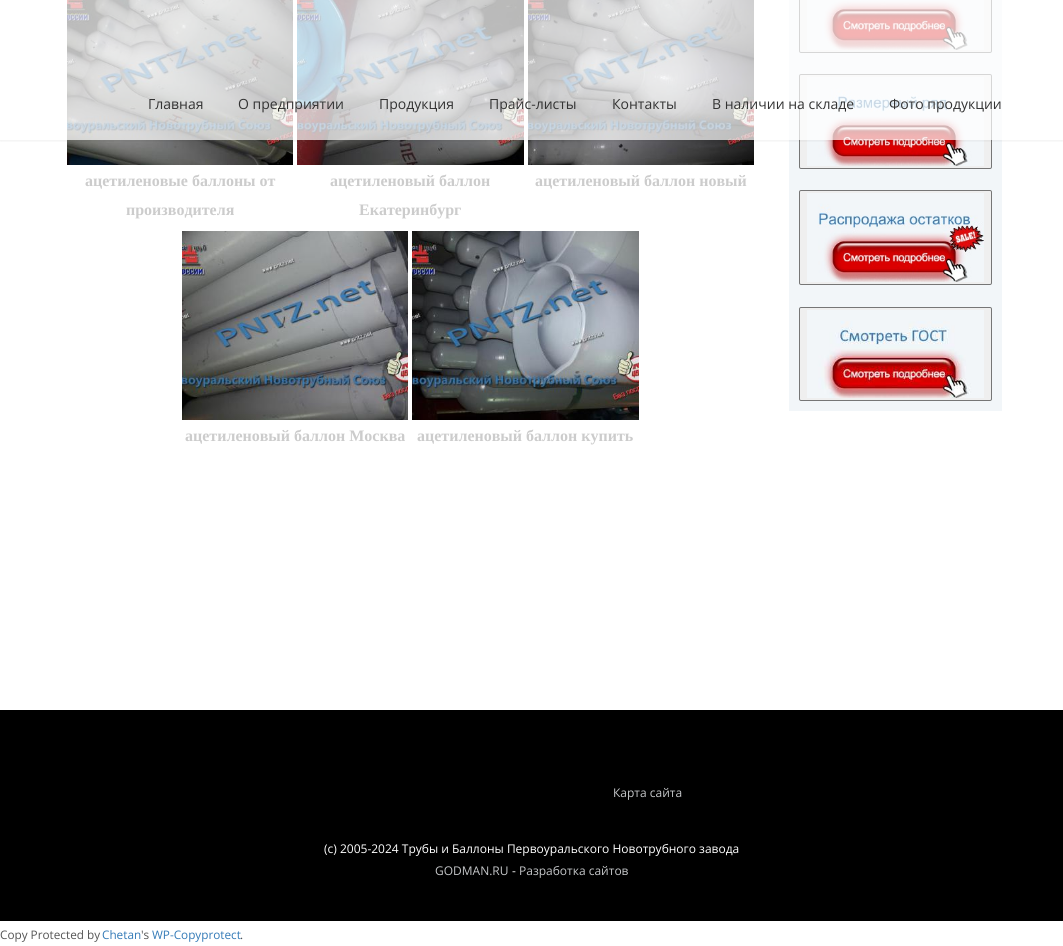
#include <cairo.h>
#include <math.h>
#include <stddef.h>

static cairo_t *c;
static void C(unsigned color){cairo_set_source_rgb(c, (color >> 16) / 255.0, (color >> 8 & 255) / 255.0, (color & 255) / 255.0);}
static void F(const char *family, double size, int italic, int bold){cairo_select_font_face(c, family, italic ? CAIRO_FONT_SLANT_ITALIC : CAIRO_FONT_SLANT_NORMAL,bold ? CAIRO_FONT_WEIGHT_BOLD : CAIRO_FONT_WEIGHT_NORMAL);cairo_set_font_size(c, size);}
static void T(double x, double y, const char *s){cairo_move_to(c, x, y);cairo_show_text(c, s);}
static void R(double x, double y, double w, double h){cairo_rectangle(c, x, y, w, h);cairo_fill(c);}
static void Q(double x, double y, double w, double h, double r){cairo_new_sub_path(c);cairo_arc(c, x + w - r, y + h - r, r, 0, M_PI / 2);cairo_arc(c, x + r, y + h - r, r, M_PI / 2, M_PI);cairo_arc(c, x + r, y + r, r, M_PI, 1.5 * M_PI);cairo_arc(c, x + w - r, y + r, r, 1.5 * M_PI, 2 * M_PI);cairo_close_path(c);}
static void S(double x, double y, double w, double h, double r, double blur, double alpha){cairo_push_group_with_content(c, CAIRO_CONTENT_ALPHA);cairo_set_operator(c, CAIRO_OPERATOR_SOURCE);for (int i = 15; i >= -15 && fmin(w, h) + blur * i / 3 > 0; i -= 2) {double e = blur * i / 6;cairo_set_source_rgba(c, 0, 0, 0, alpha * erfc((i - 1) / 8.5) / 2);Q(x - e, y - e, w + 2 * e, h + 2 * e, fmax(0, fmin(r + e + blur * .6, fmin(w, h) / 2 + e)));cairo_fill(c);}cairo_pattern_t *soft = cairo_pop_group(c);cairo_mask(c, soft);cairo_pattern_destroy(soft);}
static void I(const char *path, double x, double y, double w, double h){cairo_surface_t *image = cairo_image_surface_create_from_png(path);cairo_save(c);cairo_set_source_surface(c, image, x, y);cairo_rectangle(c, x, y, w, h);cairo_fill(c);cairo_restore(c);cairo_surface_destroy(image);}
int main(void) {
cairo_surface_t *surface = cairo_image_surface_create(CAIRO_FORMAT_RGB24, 1063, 946);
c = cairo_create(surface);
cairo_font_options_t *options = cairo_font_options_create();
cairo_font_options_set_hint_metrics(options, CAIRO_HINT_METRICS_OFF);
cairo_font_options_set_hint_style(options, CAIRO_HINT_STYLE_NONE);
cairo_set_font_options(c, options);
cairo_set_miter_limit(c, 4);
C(0xffffff);
cairo_paint(c);
I("1.png",67,0,226,165);
I("2.png",297,0,227,165);
I("3.png",528,0,226,165);
C(0xf2f6f9);
R(789,0,213,411);
C(0xefefef);
Q(799.5,-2.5,192,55,1.5);
cairo_fill_preserve(c);
C(0x767676);
cairo_set_line_width(c,1);
cairo_stroke(c);
I("6.png",807,0,177,50);
C(0xefefef);
Q(799.5,74.5,192,94,1.5);
cairo_fill_preserve(c);
C(0x767676);
cairo_stroke(c);
I("7.png",807,77,177,89);
cairo_save(c);
cairo_rectangle(c,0,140,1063,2);
cairo_clip(c);
C(0x000000);
S(0,0,1063,140,0,2.5,.1);
cairo_restore(c);
cairo_set_source_rgba(c,1,1,1,0.7);
R(67,0,935,140);
F("Open Sans",14,0,0);
C(0x333333);
T(148,109,"Главная");
T(238,109,"О предприятии");
T(379,109,"Продукция");
T(489,109,"Прайс-листы");
T(612,109,"Контакты");
T(712,109,"В наличии на складе");
T(889,109,"Фото продукции");
F("Liberation Serif",16,0,1);
C(0xcccccc);
T(85,186,"ацетиленовые баллоны от");
T(126,215,"производителя");
T(330,186,"ацетиленовый баллон");
T(359,215,"Екатеринбург");
T(535,186,"ацетиленовый баллон новый");
I("4.png",182,231,226,189);
T(185,441,"ацетиленовый баллон Москва");
I("5.png",412,231,227,189);
T(417,441,"ацетиленовый баллон купить");
C(0xefefef);
Q(799.5,190.5,192,94,1.5);
cairo_fill_preserve(c);
C(0x767676);
cairo_stroke(c);
I("8.png",807,193,177,89);
C(0xefefef);
Q(799.5,307.5,192,93,1.5);
cairo_fill_preserve(c);
C(0x767676);
cairo_stroke(c);
I("9.png",807,310,177,88);
C(0x000000);
R(0,710,1063,211);
F("Open Sans",12,0,0);
C(0xc5c7c9);
T(613,797,"Карта сайта");
C(0xffffff);
T(324,853,"(с) 2005-2024 Трубы и Баллоны Первоуральского Новотрубного завода");
C(0xc5c7c9);
T(435,875,"GODMAN.RU");
C(0xffffff);
T(512,875,"-");
C(0xc5c7c9);
T(519,875,"Разработка сайтов");
F("Open Sans",11.75,0,0);
C(0x555555);
T(0,939,"Copy Protected by");
C(0x337ab7);
T(102,939,"Chetan");
C(0x555555);
T(141,939,"'s");
C(0x337ab7);
T(152,939,"WP-Copyprotect");
C(0x555555);
T(240,939,".");
cairo_surface_write_to_png(surface, "o.png");
cairo_font_options_destroy(options);
cairo_destroy(c);
cairo_surface_destroy(surface);
return 0;
}
